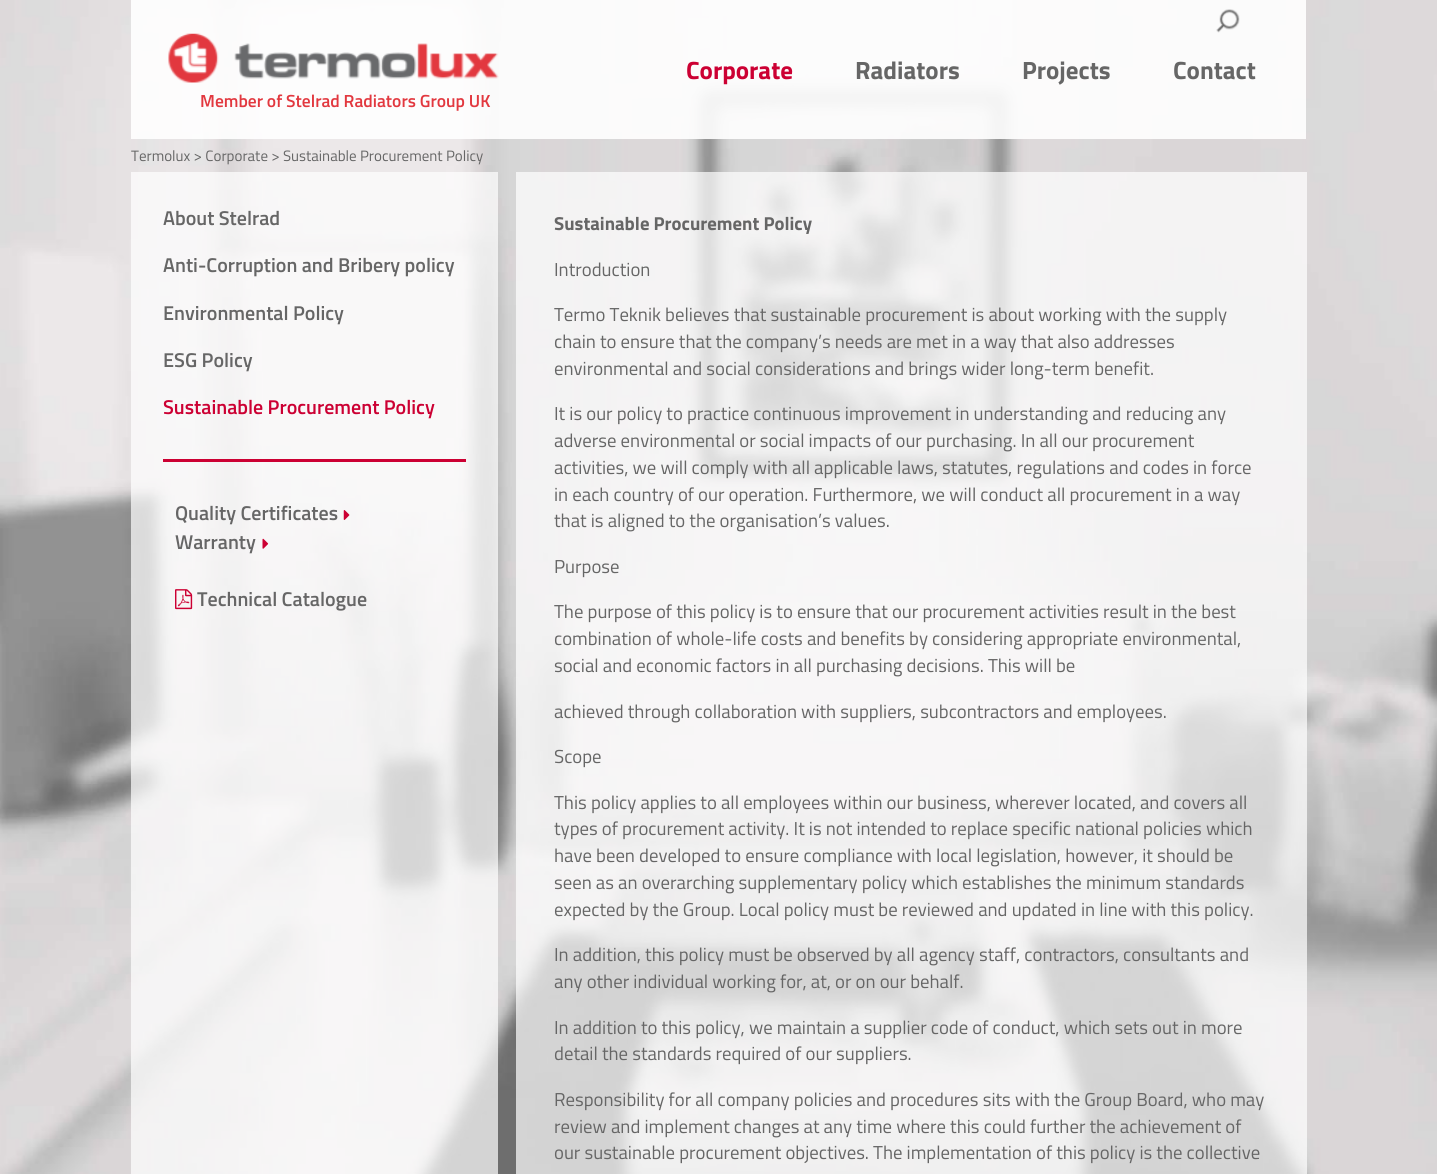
#include <cairo.h>
#include <math.h>
#include <stddef.h>

static cairo_t *c;
static void C(unsigned color){cairo_set_source_rgb(c, (color >> 16) / 255.0, (color >> 8 & 255) / 255.0, (color & 255) / 255.0);}
static void F(const char *family, double size, int italic, int bold){cairo_select_font_face(c, family, italic ? CAIRO_FONT_SLANT_ITALIC : CAIRO_FONT_SLANT_NORMAL,bold ? CAIRO_FONT_WEIGHT_BOLD : CAIRO_FONT_WEIGHT_NORMAL);cairo_set_font_size(c, size);}
static void T(double x, double y, const char *s){cairo_move_to(c, x, y);cairo_show_text(c, s);}
static void R(double x, double y, double w, double h){cairo_rectangle(c, x, y, w, h);cairo_fill(c);}
static void I(const char *path, double x, double y, double w, double h){cairo_surface_t *image = cairo_image_surface_create_from_png(path);cairo_save(c);cairo_set_source_surface(c, image, x, y);cairo_rectangle(c, x, y, w, h);cairo_fill(c);cairo_restore(c);cairo_surface_destroy(image);}
int main(void) {
cairo_surface_t *surface = cairo_image_surface_create(CAIRO_FORMAT_RGB24, 1437, 1174);
c = cairo_create(surface);
cairo_font_options_t *options = cairo_font_options_create();
cairo_font_options_set_hint_metrics(options, CAIRO_HINT_METRICS_OFF);
cairo_font_options_set_hint_style(options, CAIRO_HINT_STYLE_NONE);
cairo_set_font_options(c, options);
cairo_set_miter_limit(c, 4);
C(0xffffff);
cairo_paint(c);
I("1.png",0,0,1437,1174);
cairo_set_source_rgba(c,1,1,1,0.9);
R(131,0,1175,139);
I("2.png",1216,9,24,24);
F("Titillium Web",25,0,1);
C(0xcc0033);
T(686,79,"Corporate");
C(0x666666);
T(855,79,"Radiators");
T(1022,79,"Projects");
T(1173,79,"Contact");
I("3.png",168,33,331,50);
F("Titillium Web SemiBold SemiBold",17.5,0,0);
C(0xe2383f);
T(200,107,"Member of Stelrad Radiators Group UK");
F("Titillium Web",15,0,0);
C(0x666666);
T(131,161,"Termolux > Corporate > Sustainable Procurement Policy");
cairo_set_source_rgba(c,1,1,1,0.7);
R(131,172,367,1002);
F("Titillium Web SemiBold SemiBold",20,0,0);
C(0x666666);
T(163,225,"About Stelrad");
T(163,272,"Anti-Corruption and Bribery policy");
T(163,320,"Environmental Policy");
T(163,367,"ESG Policy");
C(0xcc0033);
T(163,414,"Sustainable Procurement Policy");
R(163,459,303,3);
C(0x666666);
T(175,520,"Quality Certificates");
I("4.png",343,510,7,10);
T(175,549,"Warranty");
I("5.png",262,538,7,11);
I("6.png",175,589,18,21);
T(197,606,"Technical Catalogue");
cairo_set_source_rgba(c,1,1,1,0.7);
R(516,172,791,1002);
F("Titillium Web",18.75,0,1);
C(0x666666);
T(554,230,"Sustainable Procurement Policy");
F("Titillium Web",18.75,0,0);
T(554,276,"Introduction");
T(554,321,"Termo Teknik believes that sustainable procurement is about working with the supply");
T(554,348,"chain to ensure that the company’s needs are met in a way that also addresses");
T(554,375,"environmental and social considerations and brings wider long-term benefit.");
T(554,420,"It is our policy to practice continuous improvement in understanding and reducing any");
T(554,447,"adverse environmental or social impacts of our purchasing. In all our procurement");
T(554,474,"activities, we will comply with all applicable laws, statutes, regulations and codes in force");
T(554,501,"in each country of our operation. Furthermore, we will conduct all procurement in a way");
T(554,527,"that is aligned to the organisation’s values.");
T(554,573,"Purpose");
T(554,618,"The purpose of this policy is to ensure that our procurement activities result in the best");
T(554,645,"combination of whole-life costs and benefits by considering appropriate environmental,");
T(554,672,"social and economic factors in all purchasing decisions. This will be");
T(554,718,"achieved through collaboration with suppliers, subcontractors and employees.");
T(554,763,"Scope");
T(554,809,"This policy applies to all employees within our business, wherever located, and covers all");
T(554,835,"types of procurement activity. It is not intended to replace specific national policies which");
T(554,862,"have been developed to ensure compliance with local legislation, however, it should be");
T(554,889,"seen as an overarching supplementary policy which establishes the minimum standards");
T(554,916,"expected by the Group. Local policy must be reviewed and updated in line with this policy.");
T(554,961,"In addition, this policy must be observed by all agency staff, contractors, consultants and");
T(554,988,"any other individual working for, at, or on our behalf.");
T(554,1034,"In addition to this policy, we maintain a supplier code of conduct, which sets out in more");
T(554,1060,"detail the standards required of our suppliers.");
T(554,1106,"Responsibility for all company policies and procedures sits with the Group Board, who may");
T(554,1133,"review and implement changes at any time where this could further the achievement of");
T(554,1159,"our sustainable procurement objectives. The implementation of this policy is the collective");
cairo_surface_write_to_png(surface, "o.png");
cairo_font_options_destroy(options);
cairo_destroy(c);
cairo_surface_destroy(surface);
return 0;
}
